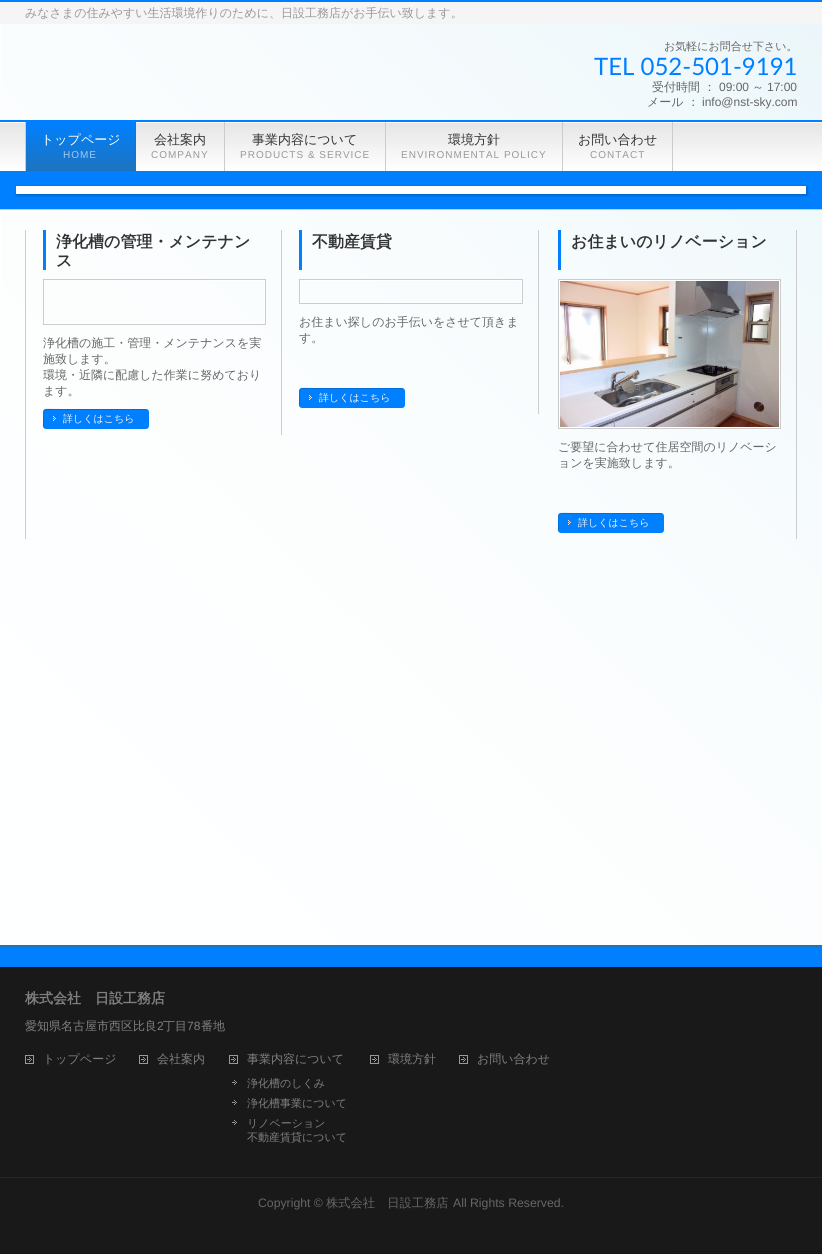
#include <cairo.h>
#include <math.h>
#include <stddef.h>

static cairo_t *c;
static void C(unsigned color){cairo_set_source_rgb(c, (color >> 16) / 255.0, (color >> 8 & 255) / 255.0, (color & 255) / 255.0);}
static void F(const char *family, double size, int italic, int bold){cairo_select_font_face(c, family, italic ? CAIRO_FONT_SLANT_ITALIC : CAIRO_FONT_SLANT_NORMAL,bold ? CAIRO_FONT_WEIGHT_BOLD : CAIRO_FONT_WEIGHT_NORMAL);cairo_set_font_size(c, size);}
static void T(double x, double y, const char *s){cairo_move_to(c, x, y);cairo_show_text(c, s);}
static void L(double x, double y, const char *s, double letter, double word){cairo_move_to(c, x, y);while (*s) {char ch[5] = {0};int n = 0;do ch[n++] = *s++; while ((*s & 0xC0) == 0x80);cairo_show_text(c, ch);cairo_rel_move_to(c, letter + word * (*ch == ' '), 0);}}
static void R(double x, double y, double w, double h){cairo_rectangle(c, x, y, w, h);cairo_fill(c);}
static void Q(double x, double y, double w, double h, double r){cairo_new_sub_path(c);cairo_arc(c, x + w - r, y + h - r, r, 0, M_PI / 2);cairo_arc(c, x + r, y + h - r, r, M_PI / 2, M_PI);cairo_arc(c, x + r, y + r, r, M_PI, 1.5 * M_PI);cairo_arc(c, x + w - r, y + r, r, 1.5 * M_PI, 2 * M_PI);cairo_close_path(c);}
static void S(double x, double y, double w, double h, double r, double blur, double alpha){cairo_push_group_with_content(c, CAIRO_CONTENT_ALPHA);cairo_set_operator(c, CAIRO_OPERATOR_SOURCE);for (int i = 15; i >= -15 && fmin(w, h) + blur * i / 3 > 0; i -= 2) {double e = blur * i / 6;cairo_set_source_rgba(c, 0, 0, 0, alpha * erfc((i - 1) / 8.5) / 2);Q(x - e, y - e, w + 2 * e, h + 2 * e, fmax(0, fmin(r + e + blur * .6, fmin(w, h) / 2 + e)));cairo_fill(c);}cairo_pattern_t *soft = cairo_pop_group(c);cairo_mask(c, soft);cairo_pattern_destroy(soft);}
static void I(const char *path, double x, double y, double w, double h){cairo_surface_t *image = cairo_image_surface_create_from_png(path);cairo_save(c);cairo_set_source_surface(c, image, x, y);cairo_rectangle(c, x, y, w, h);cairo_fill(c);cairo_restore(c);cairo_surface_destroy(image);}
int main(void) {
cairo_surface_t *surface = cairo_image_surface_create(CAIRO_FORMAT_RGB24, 822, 1255);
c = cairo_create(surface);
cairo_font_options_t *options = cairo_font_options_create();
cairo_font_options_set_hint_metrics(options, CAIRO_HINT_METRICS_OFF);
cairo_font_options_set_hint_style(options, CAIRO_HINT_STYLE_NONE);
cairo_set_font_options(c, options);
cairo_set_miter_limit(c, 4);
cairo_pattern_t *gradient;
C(0xffffff);
cairo_paint(c);
I("1.png",0,24,822,1231);
C(0xf5f5f5);
R(0,2,822,22);
C(0x0080ff);
R(0,0,822,2);
F("WenQuanYi Zen Hei Medium",12,0,0);
C(0x999999);
T(25,17,"みなさまの住みやすい生活環境作りのために、日設工務店がお手伝い致します。");
F("WenQuanYi Zen Hei Medium",11,0,0);
C(0x666666);
T(664,50,"お気軽にお問合せ下さい。");
F("Lato",24,0,0);
C(0x0080ff);
T(594,75,"TEL 052-501-9191");
F("WenQuanYi Zen Hei Medium",12,0,0);
C(0x666666);
T(652,91,"受付時間 ：");
F("Liberation Sans",12,0,0);
T(719,91,"09:00");
F("WenQuanYi Zen Hei Medium",12,0,0);
T(752,91,"～");
F("Liberation Sans",12,0,0);
T(767,91,"17:00");
F("WenQuanYi Zen Hei Medium",12,0,0);
T(647,106,"メール ：");
F("Liberation Sans",12,0,0);
T(702,106,"info@nst-sky.com");
gradient = cairo_pattern_create_linear(0,122,0,171);
cairo_pattern_add_color_stop_rgba(gradient,0,0.898,0.898,0.898,1);
cairo_pattern_add_color_stop_rgba(gradient,1,1,1,1,1);
cairo_set_source(c,gradient);
cairo_pattern_destroy(gradient);
R(0,123,822,48);
C(0xffffff);
R(0,122,822,1);
C(0x0080ff);
R(0,120,822,2);
C(0xcccccc);
R(25,122,1,49);
gradient = cairo_pattern_create_linear(81,122,81,171);
cairo_pattern_add_color_stop_rgba(gradient,0,0,0.502,1,1);
cairo_pattern_add_color_stop_rgba(gradient,1,0.118,0.451,0.745,1);
cairo_set_source(c,gradient);
cairo_pattern_destroy(gradient);
R(26,122,109,49);
C(0x1e73be);
R(135,122,1,49);
F("WenQuanYi Zen Hei Medium",13,0,0);
C(0xffffff);
T(41,144,"トップページ");
F("Liberation Sans",10,0,0);
C(0xa1c9ee);
L(63,158,"HOME",1,0);
C(0xcccccc);
R(224,122,1,49);
F("WenQuanYi Zen Hei Medium",13,0,0);
C(0x333333);
T(154,144,"会社案内");
F("Liberation Sans",10,0,0);
C(0x999999);
L(151,158,"COMPANY",1,0);
C(0xcccccc);
R(385,122,1,49);
F("WenQuanYi Zen Hei Medium",13,0,0);
C(0x333333);
T(252,144,"事業内容について");
F("Liberation Sans",10,0,0);
C(0x999999);
L(240,158,"PRODUCTS & SERVICE",1,0);
C(0xcccccc);
R(562,122,1,49);
F("WenQuanYi Zen Hei Medium",13,0,0);
C(0x333333);
T(448,144,"環境方針");
F("Liberation Sans",10,0,0);
C(0x999999);
L(401,158,"ENVIRONMENTAL POLICY",1,0);
C(0xcccccc);
R(672,122,1,49);
F("WenQuanYi Zen Hei Medium",13,0,0);
C(0x333333);
T(578,144,"お問い合わせ");
F("Liberation Sans",10,0,0);
C(0x999999);
L(590,158,"CONTACT",1,0);
C(0x0080ff);
R(0,171,822,38);
C(0xcccccc);
R(0,209,822,1);
C(0x000000);
S(17,187,790,8,0,1.5,.3);
C(0xffffff);
R(16,186,790,8);
C(0xcccccc);
R(25,230,1,309);
R(281,230,1,205);
C(0x0080ff);
R(43,230,3,40);
F("WenQuanYi Zen Hei",16,0,1);
C(0x333333);
T(56,247,"浄化槽の管理・メンテナン");
T(56,266,"ス");
cairo_rectangle(c,43.5,279.5,222,45);
C(0xcccccc);
cairo_set_line_width(c,1);
cairo_stroke(c);
cairo_rectangle(c,44.5,280.5,220,43);
C(0xffffff);
cairo_stroke(c);
F("WenQuanYi Zen Hei Medium",12,0,0);
C(0x666666);
T(43,347,"浄化槽の施工・管理・メンテナンスを実");
T(43,363,"施致します。");
T(43,379,"環境・近隣に配慮した作業に努めており");
T(43,395,"ます。");
C(0x0080ff);
Q(43,409,106,20,3);
cairo_fill(c);
I("2.png",53,416,3,5);
cairo_set_source_rgba(c,0,0,0,0.15);
cairo_new_path(c);
cairo_move_to(c,47,410);
cairo_line_to(c,148,410);
cairo_line_to(c,146,409);
cairo_line_to(c,63,409);
cairo_curve_to(c,42,409,43,405,43,421);
cairo_curve_to(c,43,423,42,427,44,428);
cairo_line_to(c,44,420);
cairo_curve_to(c,44,417,42,410,47,410);
cairo_close_path(c);
cairo_fill(c);
F("WenQuanYi Zen Hei Medium",10,0,0);
C(0xf5f5f5);
T(63,422,"詳しくはこちら");
C(0xcccccc);
R(538,230,1,184);
C(0x0080ff);
R(299,230,3,40);
F("WenQuanYi Zen Hei",16,0,1);
C(0x333333);
T(312,247,"不動産賃貸");
cairo_rectangle(c,299.5,279.5,223,24);
C(0xcccccc);
cairo_stroke(c);
cairo_rectangle(c,300.5,280.5,221,22);
C(0xffffff);
cairo_stroke(c);
F("WenQuanYi Zen Hei Medium",12,0,0);
C(0x666666);
T(299,326,"お住まい探しのお手伝いをさせて頂きま");
T(299,342,"す。");
C(0x0080ff);
Q(299,388,106,20,3);
cairo_fill(c);
I("2.png",309,395,3,5);
cairo_set_source_rgba(c,0,0,0,0.15);
cairo_new_path(c);
cairo_move_to(c,303,389);
cairo_line_to(c,404,389);
cairo_line_to(c,402,388);
cairo_line_to(c,319,388);
cairo_curve_to(c,298,388,299,384,299,400);
cairo_curve_to(c,299,402,298,406,300,407);
cairo_line_to(c,300,399);
cairo_curve_to(c,300,396,298,389,303,389);
cairo_close_path(c);
cairo_fill(c);
F("WenQuanYi Zen Hei Medium",10,0,0);
C(0xf5f5f5);
T(319,401,"詳しくはこちら");
C(0xcccccc);
R(796,230,1,309);
C(0x0080ff);
R(558,230,3,40);
F("WenQuanYi Zen Hei",16,0,1);
C(0x333333);
T(571,247,"お住まいのリノベーション");
cairo_rectangle(c,558.5,279.5,222,149);
C(0xcccccc);
cairo_stroke(c);
cairo_rectangle(c,559.5,280.5,220,147);
C(0xffffff);
cairo_stroke(c);
I("3.png",560,281,219,146);
F("WenQuanYi Zen Hei Medium",12,0,0);
C(0x666666);
T(558,451,"ご要望に合わせて住居空間のリノベーシ");
T(558,467,"ョンを実施致します。");
C(0x0080ff);
Q(558,513,106,20,3);
cairo_fill(c);
I("2.png",568,520,3,5);
cairo_set_source_rgba(c,0,0,0,0.15);
cairo_new_path(c);
cairo_move_to(c,562,514);
cairo_line_to(c,663,514);
cairo_line_to(c,661,513);
cairo_line_to(c,578,513);
cairo_curve_to(c,557,513,558,509,558,525);
cairo_curve_to(c,558,527,557,531,559,532);
cairo_line_to(c,559,524);
cairo_curve_to(c,559,521,557,514,562,514);
cairo_close_path(c);
cairo_fill(c);
F("WenQuanYi Zen Hei Medium",10,0,0);
C(0xf5f5f5);
T(578,526,"詳しくはこちら");
C(0x0080ff);
R(0,947,822,20);
C(0x1e73be);
R(0,945,822,2);
C(0x191919);
R(0,968,822,209);
C(0x151515);
R(0,967,822,1);
F("WenQuanYi Zen Hei",14,0,1);
C(0x808080);
T(25,1003,"株式会社　日設工務店");
F("WenQuanYi Zen Hei Medium",12,0,0);
T(25,1030,"愛知県名古屋市西区比良");
F("Liberation Sans",12,0,0);
T(157,1030,"2");
F("WenQuanYi Zen Hei Medium",12,0,0);
T(163,1030,"丁目");
F("Liberation Sans",12,0,0);
T(187,1030,"78");
F("WenQuanYi Zen Hei Medium",12,0,0);
T(201,1030,"番地");
I("4.png",25,1055,9,9);
T(43,1063,"トップページ");
I("4.png",139,1055,9,9);
T(157,1063,"会社案内");
I("4.png",229,1055,9,9);
T(247,1063,"事業内容について");
I("5.png",232,1080,5,5);
F("WenQuanYi Zen Hei Medium",11,0,0);
T(247,1087,"浄化槽のしくみ");
I("5.png",232,1100,5,5);
T(247,1107,"浄化槽事業について");
I("5.png",232,1120,5,5);
T(247,1127,"リノベーション");
T(247,1141,"不動産賃貸について");
I("4.png",370,1055,9,9);
F("WenQuanYi Zen Hei Medium",12,0,0);
T(388,1063,"環境方針");
I("4.png",459,1055,9,9);
T(477,1063,"お問い合わせ");
C(0x191919);
R(0,1178,822,76);
C(0x262626);
R(0,1177,822,1);
F("Liberation Sans",12.25,0,0);
C(0x666666);
T(258,1207,"Copyright ©");
F("WenQuanYi Zen Hei Medium",12.25,0,0);
T(326,1207,"株式会社　日設工務店");
F("Liberation Sans",12.25,0,0);
T(453,1207,"All Rights Reserved.");
cairo_surface_write_to_png(surface, "o.png");
cairo_font_options_destroy(options);
cairo_destroy(c);
cairo_surface_destroy(surface);
return 0;
}
